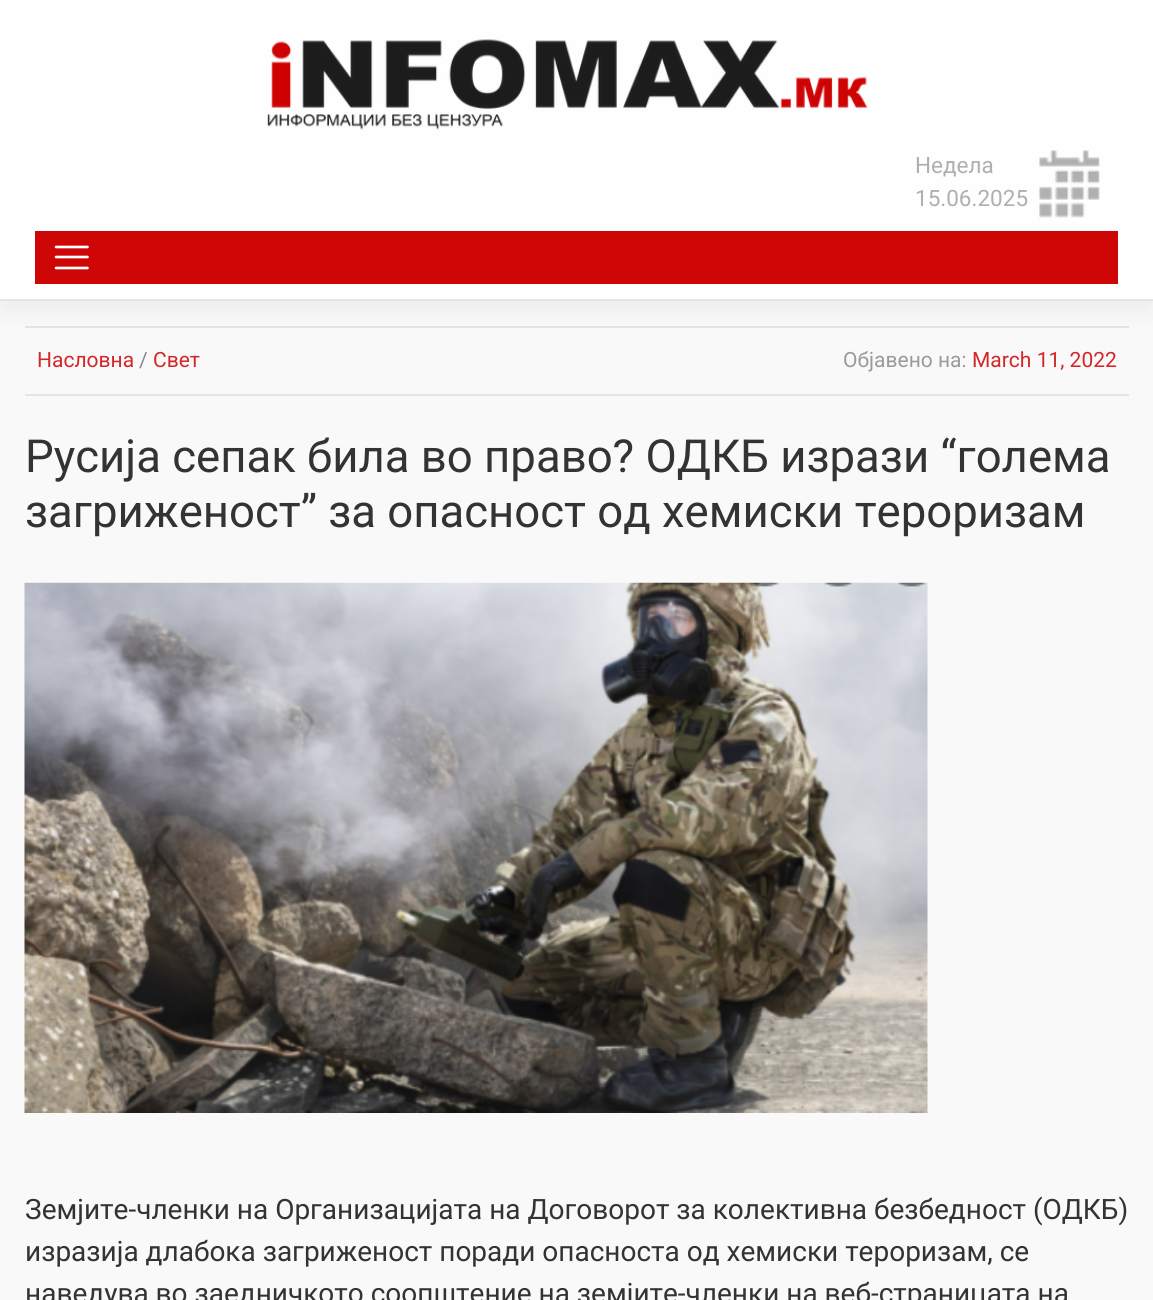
#include <cairo.h>
#include <math.h>
#include <stddef.h>

static cairo_t *c;
static void C(unsigned color){cairo_set_source_rgb(c, (color >> 16) / 255.0, (color >> 8 & 255) / 255.0, (color & 255) / 255.0);}
static void F(const char *family, double size, int italic, int bold){cairo_select_font_face(c, family, italic ? CAIRO_FONT_SLANT_ITALIC : CAIRO_FONT_SLANT_NORMAL,bold ? CAIRO_FONT_WEIGHT_BOLD : CAIRO_FONT_WEIGHT_NORMAL);cairo_set_font_size(c, size);}
static void T(double x, double y, const char *s){cairo_move_to(c, x, y);cairo_show_text(c, s);}
static void R(double x, double y, double w, double h){cairo_rectangle(c, x, y, w, h);cairo_fill(c);}
static void Q(double x, double y, double w, double h, double r){cairo_new_sub_path(c);cairo_arc(c, x + w - r, y + h - r, r, 0, M_PI / 2);cairo_arc(c, x + r, y + h - r, r, M_PI / 2, M_PI);cairo_arc(c, x + r, y + r, r, M_PI, 1.5 * M_PI);cairo_arc(c, x + w - r, y + r, r, 1.5 * M_PI, 2 * M_PI);cairo_close_path(c);}
static void S(double x, double y, double w, double h, double r, double blur, double alpha){cairo_push_group_with_content(c, CAIRO_CONTENT_ALPHA);cairo_set_operator(c, CAIRO_OPERATOR_SOURCE);for (int i = 15; i >= -15 && fmin(w, h) + blur * i / 3 > 0; i -= 2) {double e = blur * i / 6;cairo_set_source_rgba(c, 0, 0, 0, alpha * erfc((i - 1) / 8.5) / 2);Q(x - e, y - e, w + 2 * e, h + 2 * e, fmax(0, fmin(r + e + blur * .6, fmin(w, h) / 2 + e)));cairo_fill(c);}cairo_pattern_t *soft = cairo_pop_group(c);cairo_mask(c, soft);cairo_pattern_destroy(soft);}
static void I(const char *path, double x, double y, double w, double h){cairo_surface_t *image = cairo_image_surface_create_from_png(path);cairo_save(c);cairo_set_source_surface(c, image, x, y);cairo_rectangle(c, x, y, w, h);cairo_fill(c);cairo_restore(c);cairo_surface_destroy(image);}
int main(void) {
cairo_surface_t *surface = cairo_image_surface_create(CAIRO_FORMAT_RGB24, 1153, 1300);
c = cairo_create(surface);
cairo_font_options_t *options = cairo_font_options_create();
cairo_font_options_set_hint_metrics(options, CAIRO_HINT_METRICS_OFF);
cairo_font_options_set_hint_style(options, CAIRO_HINT_STYLE_NONE);
cairo_set_font_options(c, options);
cairo_set_miter_limit(c, 4);
C(0xf9f9f9);
cairo_paint(c);
C(0xe5e5e5);
R(25,326,1104,2);
C(0x000000);
S(0,11,1153,301,0,11,.05);
C(0xfefefe);
R(0,0,1153,299);
C(0xe5e5e5);
R(0,299,1153,2);
I("1.png",267,39,601,91);
F("Roboto",22.5,0,0);
C(0xafafaf);
T(915,173,"Недела");
T(915,206,"15.06.2025");
I("2.png",1039,150,61,68);
C(0xcf0606);
R(35,231,1083,53);
cairo_new_path(c);
cairo_move_to(c,56,247);
cairo_line_to(c,87.5,247);
cairo_move_to(c,56,257);
cairo_line_to(c,87.5,257);
cairo_move_to(c,56,268);
cairo_line_to(c,87.5,268);
C(0xffffff);
cairo_set_line_width(c,2.6);
cairo_set_line_cap(c,CAIRO_LINE_CAP_ROUND);
cairo_stroke(c);
C(0xe5e5e5);
R(25,394,1104,2);
F("Roboto",21,0,0);
C(0xd42629);
T(37,367,"Насловна");
C(0x888888);
T(139,367,"/");
C(0xd42629);
T(153,367,"Свет");
C(0x9a9a9a);
T(843,367,"Објавено на:");
C(0xd42629);
T(972,367,"March 11, 2022");
F("Roboto",45.5,0,0);
C(0x333333);
T(25,472,"Русија сепак била во право? ОДКБ изрази “голема");
T(25,527,"загриженост” за опасност од хемиски тероризам");
I("3.png",24,582,904,531);
F("Roboto",28,0,0);
T(25,1219,"Земјите-членки на Организацијата на Договорот за колективна безбедност (ОДКБ)");
T(25,1261,"изразија длабока загриженост поради опасноста од хемиски тероризам, се");
T(25,1303,"наведува во заедничкото соопштение на земјите-членки на веб-страницата на");
cairo_surface_write_to_png(surface, "o.png");
cairo_font_options_destroy(options);
cairo_destroy(c);
cairo_surface_destroy(surface);
return 0;
}
